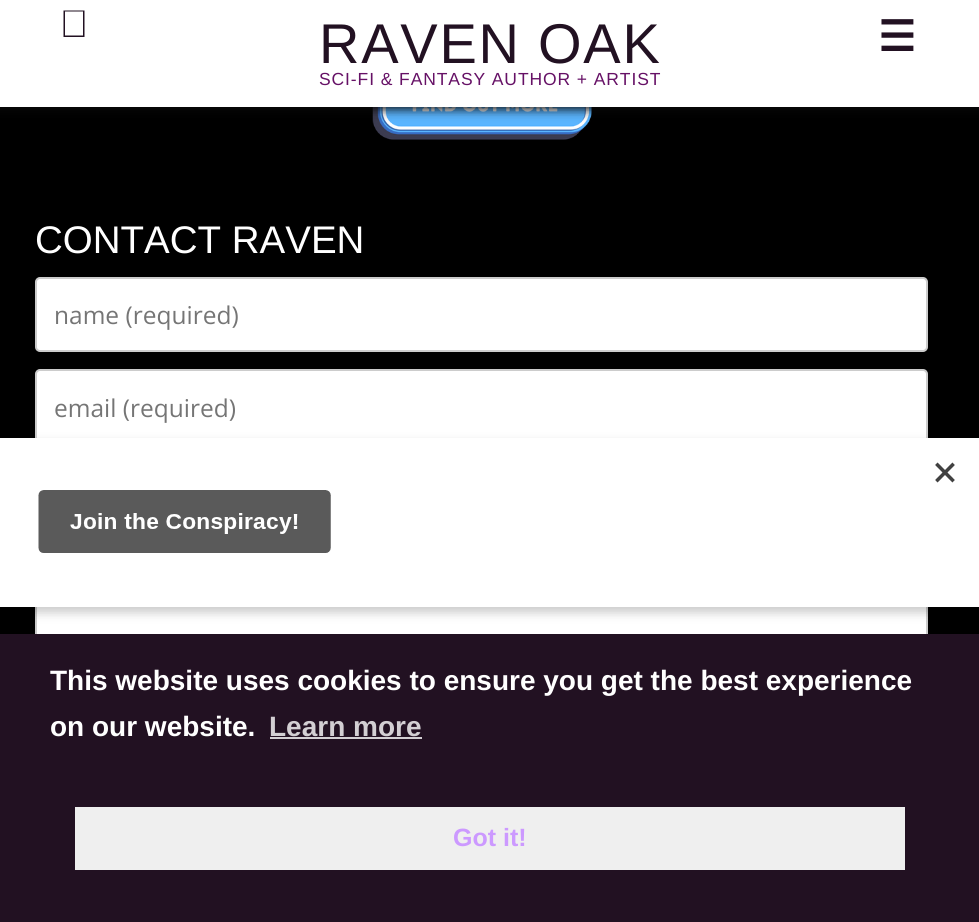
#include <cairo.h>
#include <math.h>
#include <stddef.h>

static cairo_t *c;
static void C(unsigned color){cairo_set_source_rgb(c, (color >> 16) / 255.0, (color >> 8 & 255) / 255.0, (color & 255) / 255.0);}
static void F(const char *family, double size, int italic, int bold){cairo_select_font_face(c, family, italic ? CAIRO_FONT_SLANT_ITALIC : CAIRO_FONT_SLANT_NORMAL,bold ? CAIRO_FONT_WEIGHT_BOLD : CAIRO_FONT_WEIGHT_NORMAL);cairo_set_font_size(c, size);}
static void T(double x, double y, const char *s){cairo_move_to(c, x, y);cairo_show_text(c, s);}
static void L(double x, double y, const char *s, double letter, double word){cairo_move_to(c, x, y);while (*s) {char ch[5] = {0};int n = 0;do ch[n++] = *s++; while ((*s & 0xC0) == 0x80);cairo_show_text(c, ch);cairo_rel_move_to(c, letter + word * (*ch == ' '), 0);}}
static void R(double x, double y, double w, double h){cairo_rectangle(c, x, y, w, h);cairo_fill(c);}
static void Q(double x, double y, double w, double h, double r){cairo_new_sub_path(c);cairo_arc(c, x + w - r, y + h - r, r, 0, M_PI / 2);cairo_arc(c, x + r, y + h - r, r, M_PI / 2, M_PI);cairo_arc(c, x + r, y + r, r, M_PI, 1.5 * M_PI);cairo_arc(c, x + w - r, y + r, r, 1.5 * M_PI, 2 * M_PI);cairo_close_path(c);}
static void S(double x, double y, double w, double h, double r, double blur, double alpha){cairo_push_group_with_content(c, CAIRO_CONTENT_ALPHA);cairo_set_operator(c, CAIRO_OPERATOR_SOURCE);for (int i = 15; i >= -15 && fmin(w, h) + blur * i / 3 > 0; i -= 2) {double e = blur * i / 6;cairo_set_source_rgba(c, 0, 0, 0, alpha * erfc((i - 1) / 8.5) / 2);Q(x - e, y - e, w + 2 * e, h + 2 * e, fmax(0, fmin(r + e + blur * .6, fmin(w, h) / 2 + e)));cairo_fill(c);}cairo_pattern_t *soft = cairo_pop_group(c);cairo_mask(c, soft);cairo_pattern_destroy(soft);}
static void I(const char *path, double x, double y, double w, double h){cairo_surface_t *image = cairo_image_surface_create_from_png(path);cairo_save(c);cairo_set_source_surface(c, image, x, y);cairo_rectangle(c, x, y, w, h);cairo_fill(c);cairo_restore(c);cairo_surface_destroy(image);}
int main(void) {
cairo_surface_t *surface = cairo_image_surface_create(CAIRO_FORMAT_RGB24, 979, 922);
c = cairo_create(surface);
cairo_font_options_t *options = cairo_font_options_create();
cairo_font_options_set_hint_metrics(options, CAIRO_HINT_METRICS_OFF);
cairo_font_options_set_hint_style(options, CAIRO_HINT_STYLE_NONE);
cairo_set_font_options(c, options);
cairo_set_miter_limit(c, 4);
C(0xffffff);
cairo_paint(c);
I("1.png",0,107,979,527);
I("2.png",372,107,220,33);
C(0x0a0a0a);
S(-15,0,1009,110,0,5,.9);
C(0xffffff);
R(0,0,979,107);
C(0x221122);
cairo_new_path(c);
cairo_move_to(c,63.5,10.5);
cairo_line_to(c,84.5,10.5);
cairo_line_to(c,84.5,37);
cairo_line_to(c,63.5,37);
cairo_close_path(c);
cairo_move_to(c,65,11.5);
cairo_line_to(c,65,35.5);
cairo_line_to(c,83,35.5);
cairo_line_to(c,83,11.5);
cairo_close_path(c);
cairo_fill(c);
F("Liberation Sans",56,0,0);
L(319,63,"RAVEN OAK",1.75,0);
F("Liberation Sans",17.5,0,0);
C(0x661166);
L(319,85,"SCI-FI & FANTASY AUTHOR + ARTIST",.9,0);
F("DejaVu Sans",42,0,1);
C(0x221122);
T(878,51,"☰");
F("Liberation Sans",38.5,0,0);
C(0xffffff);
T(35,253,"CONTACT RAVEN");
Q(36,278,891,73,4);
cairo_fill_preserve(c);
C(0xcccccc);
cairo_stroke(c);
F("Open Sans",24.5,0,0);
C(0x757575);
T(54,324,"name (required)");
C(0xffffff);
Q(36,370,891,74,4);
cairo_fill_preserve(c);
C(0xcccccc);
cairo_stroke(c);
C(0x757575);
T(54,417,"email (required)");
C(0xffffff);
R(37,607,889,27);
cairo_rectangle(c,36,463,891,208);
C(0xcccccc);
cairo_stroke(c);
C(0x000000);
S(0,443,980,170,0,5,.2);
C(0xffffff);
R(0,438,979,169);
I("3.png",38,462,917,91);
C(0x221122);
R(0,634,979,288);
F("Liberation Sans",28,0,1);
C(0xffffff);
T(50,690,"This website uses cookies to ensure you get the best experience");
T(50,736,"on our website.");
C(0xd3cfd3);
T(269,736,"Learn more");
R(270,737,152,2);
C(0xefefef);
R(75,807,830,63);
F("Liberation Sans",25,0,1);
C(0xcc99ff);
T(453,846,"Got it!");
cairo_surface_write_to_png(surface, "o.png");
cairo_font_options_destroy(options);
cairo_destroy(c);
cairo_surface_destroy(surface);
return 0;
}
